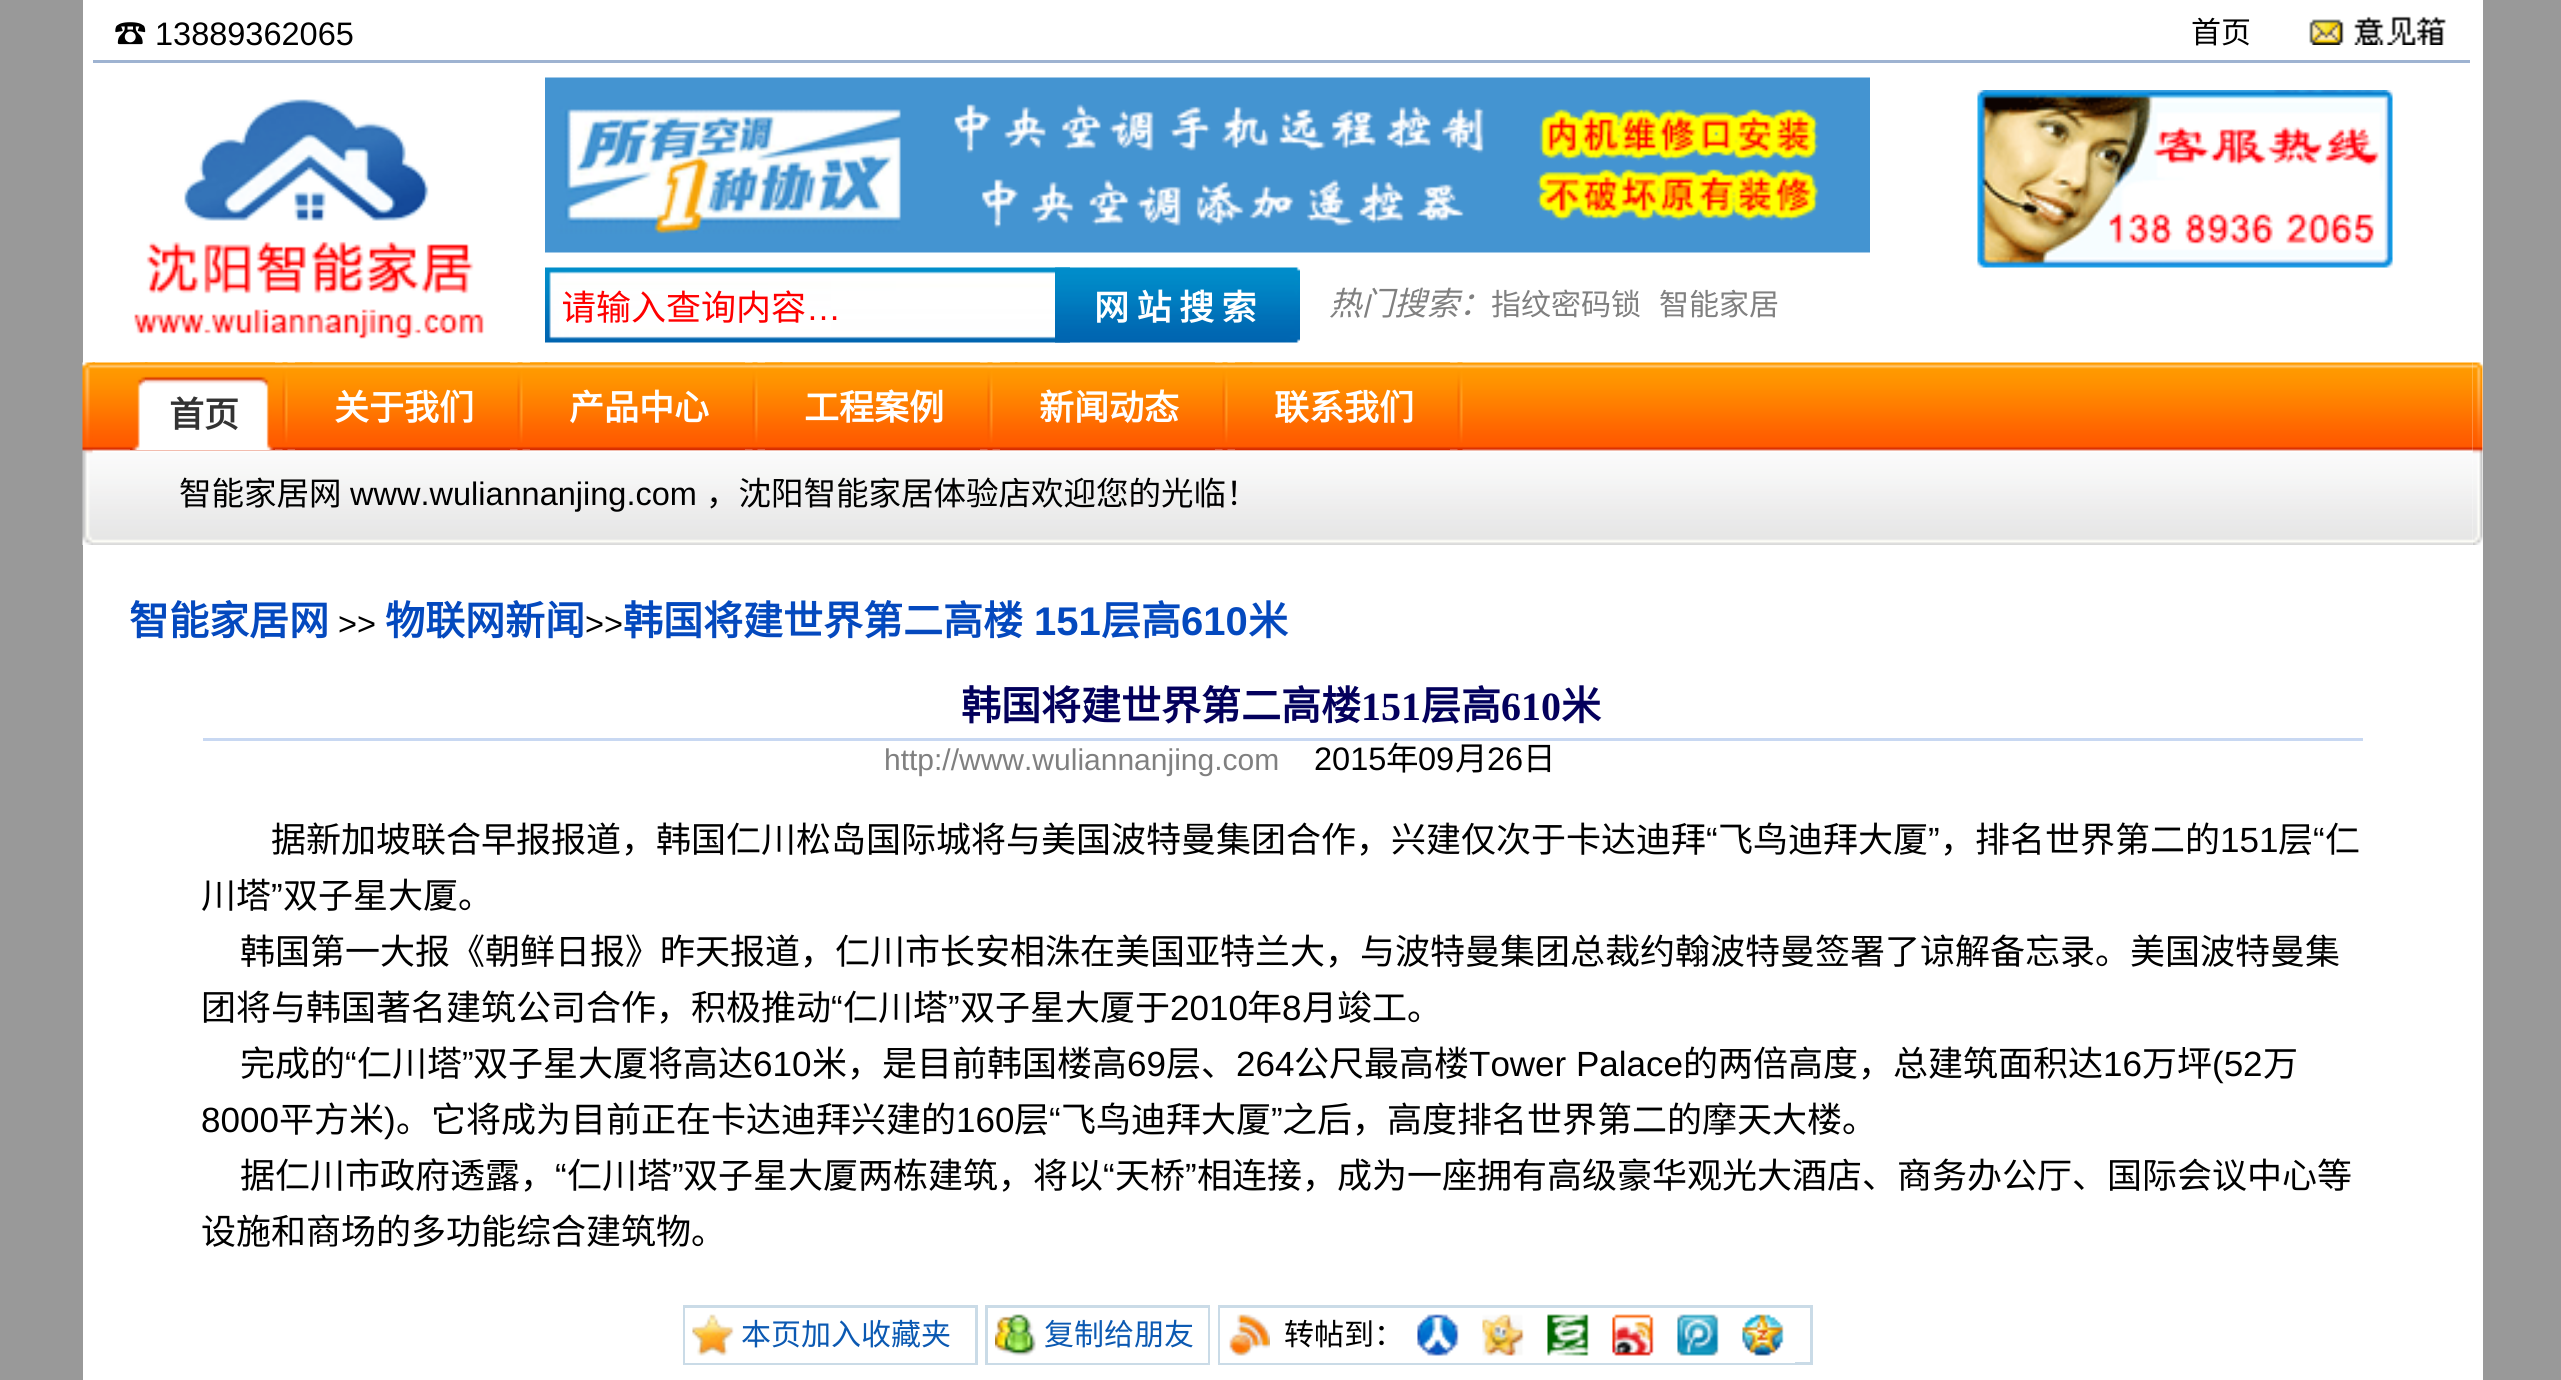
#include <cairo.h>
#include <math.h>
#include <stddef.h>

static cairo_t *c;
static void C(unsigned color){cairo_set_source_rgb(c, (color >> 16) / 255.0, (color >> 8 & 255) / 255.0, (color & 255) / 255.0);}
static void F(const char *family, double size, int italic, int bold){cairo_select_font_face(c, family, italic ? CAIRO_FONT_SLANT_ITALIC : CAIRO_FONT_SLANT_NORMAL,bold ? CAIRO_FONT_WEIGHT_BOLD : CAIRO_FONT_WEIGHT_NORMAL);cairo_set_font_size(c, size);}
static void T(double x, double y, const char *s){cairo_move_to(c, x, y);cairo_show_text(c, s);}
static void L(double x, double y, const char *s, double letter, double word){cairo_move_to(c, x, y);while (*s) {char ch[5] = {0};int n = 0;do ch[n++] = *s++; while ((*s & 0xC0) == 0x80);cairo_show_text(c, ch);cairo_rel_move_to(c, letter + word * (*ch == ' '), 0);}}
static void R(double x, double y, double w, double h){cairo_rectangle(c, x, y, w, h);cairo_fill(c);}
static void I(const char *path, double x, double y, double w, double h){cairo_surface_t *image = cairo_image_surface_create_from_png(path);cairo_save(c);cairo_set_source_surface(c, image, x, y);cairo_rectangle(c, x, y, w, h);cairo_fill(c);cairo_restore(c);cairo_surface_destroy(image);}
int main(void) {
cairo_surface_t *surface = cairo_image_surface_create(CAIRO_FORMAT_RGB24, 2561, 1380);
c = cairo_create(surface);
cairo_font_options_t *options = cairo_font_options_create();
cairo_font_options_set_hint_metrics(options, CAIRO_HINT_METRICS_OFF);
cairo_font_options_set_hint_style(options, CAIRO_HINT_STYLE_NONE);
cairo_set_font_options(c, options);
cairo_set_miter_limit(c, 4);
C(0x999999);
cairo_paint(c);
C(0xffffff);
R(83,0,2400,1380);
F("Noto Sans CJK SC",32.5,0,0);
C(0x000000);
T(114,45,"☎");
F("Liberation Sans",32.5,0,0);
T(155,45,"13889362065");
F("Noto Sans CJK SC",30,0,0);
T(2191,43,"首页");
I("1.png",2309,16,137,29);
C(0x9eb3d1);
R(93,60,2377,3);
I("2.png",134,99,350,240);
I("3.png",545,77,1325,176);
I("4.png",545,267,525,76);
cairo_save(c);
cairo_rectangle(c,563,280,500,50);
cairo_clip(c);
F("Noto Sans CJK SC",35,0,0);
C(0xff0000);
T(561,320,"请输入查询内容");
cairo_restore(c);
F("Liberation Sans",35,0,0);
C(0xff0000);
T(806,320,"…");
I("5.png",1055,267,245,76);
F("Noto Sans CJK SC",35,0,1);
C(0xffffff);
L(1094,320,"网站搜索",7.5,0);
F("Noto Sans CJK SC",32.5,1,0);
C(0x808080);
T(1329,315,"热门搜索：");
F("Noto Sans CJK SC",30,0,0);
T(1491,315,"指纹密码锁");
T(1659,315,"智能家居");
I("6.png",1977,90,416,178);
I("7.png",82,362,13,183);
I("8.png",2472,362,11,183);
I("9.png",92,362,2381,183);
I("10.png",130,362,18,88);
I("11.png",145,362,130,88);
F("Noto Sans CJK SC",35,0,1);
C(0x333333);
T(169,427,"首页");
I("12.png",282,362,6,88);
I("13.png",295,362,18,88);
I("14.png",310,362,200,88);
C(0xffffff);
T(334,420,"关于我们");
I("12.png",517,362,6,88);
I("13.png",530,362,18,88);
I("14.png",545,362,200,88);
T(569,420,"产品中心");
I("12.png",752,362,6,88);
I("13.png",765,362,18,88);
I("14.png",780,362,200,88);
T(804,420,"工程案例");
I("12.png",987,362,6,88);
I("13.png",1000,362,18,88);
I("14.png",1015,362,200,88);
T(1039,420,"新闻动态");
I("12.png",1222,362,6,88);
I("13.png",1235,362,18,88);
I("14.png",1250,362,200,88);
T(1274,420,"联系我们");
I("12.png",1457,362,6,88);
F("Noto Sans CJK SC",32.5,0,0);
C(0x000000);
T(179,505,"智能家居网");
F("Liberation Sans",32.5,0,0);
T(350,505,"www.wuliannanjing.com");
F("Noto Sans CJK SC",32.5,0,0);
T(706,505,"，沈阳智能家居体验店欢迎您的光临！");
F("Noto Sans CJK SC",40,0,1);
C(0x0449be);
T(129,635,"智能家居网");
F("Liberation Sans",32.5,0,0);
C(0x000000);
T(338,635,">>");
F("Noto Sans CJK SC",40,0,1);
C(0x0449be);
T(385,635,"物联网新闻");
F("Liberation Sans",32.5,0,0);
C(0x000000);
T(585,635,">>");
F("Noto Sans CJK SC",40,0,1);
C(0x0449be);
T(623,635,"韩国将建世界第二高楼");
F("Liberation Sans",40,0,1);
T(1034,635,"151");
F("Noto Sans CJK SC",40,0,1);
T(1101,635,"层高");
F("Liberation Sans",40,0,1);
T(1181,635,"610");
F("Noto Sans CJK SC",40,0,1);
T(1248,635,"米");
C(0x03005c);
T(961,720,"韩国将建世界第二高楼");
F("Liberation Serif",40,0,1);
T(1361,720,"151");
F("Noto Sans CJK SC",40,0,1);
T(1421,720,"层高");
F("Liberation Serif",40,0,1);
T(1501,720,"610");
F("Noto Sans CJK SC",40,0,1);
T(1561,720,"米");
C(0xc8d8f2);
R(203,738,2160,3);
F("Liberation Sans",30,0,0);
C(0x808080);
T(884,770,"http://www.wuliannanjing.com");
F("Liberation Sans",32.5,0,0);
C(0x000000);
T(1314,770,"2015");
F("Noto Sans CJK SC",32.5,0,0);
T(1386,770,"年");
F("Liberation Sans",32.5,0,0);
T(1418,770,"09");
F("Noto Sans CJK SC",32.5,0,0);
T(1455,770,"月");
F("Liberation Sans",32.5,0,0);
T(1487,770,"26");
F("Noto Sans CJK SC",32.5,0,0);
T(1523,770,"日");
F("Noto Sans CJK SC",35,0,0);
T(271,852,"据新加坡联合早报报道，韩国仁川松岛国际城将与美国波特曼集团合作，兴建仅次于卡达迪拜");
F("Liberation Sans",35,0,0);
T(1706,852,"“");
F("Noto Sans CJK SC",35,0,0);
T(1718,852,"飞鸟迪拜大厦");
F("Liberation Sans",35,0,0);
T(1928,852,"”");
F("Noto Sans CJK SC",35,0,0);
T(1940,852,"，排名世界第二的");
F("Liberation Sans",35,0,0);
T(2220,852,"151");
F("Noto Sans CJK SC",35,0,0);
T(2278,852,"层");
F("Liberation Sans",35,0,0);
T(2313,852,"“");
F("Noto Sans CJK SC",35,0,0);
T(2325,852,"仁");
T(201,908,"川塔");
F("Liberation Sans",35,0,0);
T(271,908,"”");
F("Noto Sans CJK SC",35,0,0);
T(283,908,"双子星大厦。");
T(240,964,"韩国第一大报《朝鲜日报》昨天报道，仁川市长安相洙在美国亚特兰大，与波特曼集团总裁约翰波特曼签署了谅解备忘录。美国波特曼集");
T(201,1020,"团将与韩国著名建筑公司合作，积极推动");
F("Liberation Sans",35,0,0);
T(831,1020,"“");
F("Noto Sans CJK SC",35,0,0);
T(843,1020,"仁川塔");
F("Liberation Sans",35,0,0);
T(948,1020,"”");
F("Noto Sans CJK SC",35,0,0);
T(960,1020,"双子星大厦于");
F("Liberation Sans",35,0,0);
T(1170,1020,"2010");
F("Noto Sans CJK SC",35,0,0);
T(1247,1020,"年");
F("Liberation Sans",35,0,0);
T(1282,1020,"8");
F("Noto Sans CJK SC",35,0,0);
T(1302,1020,"月竣工。");
T(240,1076,"完成的");
F("Liberation Sans",35,0,0);
T(345,1076,"“");
F("Noto Sans CJK SC",35,0,0);
T(357,1076,"仁川塔");
F("Liberation Sans",35,0,0);
T(462,1076,"”");
F("Noto Sans CJK SC",35,0,0);
T(473,1076,"双子星大厦将高达");
F("Liberation Sans",35,0,0);
T(753,1076,"610");
F("Noto Sans CJK SC",35,0,0);
T(812,1076,"米，是目前韩国楼高");
F("Liberation Sans",35,0,0);
T(1127,1076,"69");
F("Noto Sans CJK SC",35,0,0);
T(1166,1076,"层、");
F("Liberation Sans",35,0,0);
T(1236,1076,"264");
F("Noto Sans CJK SC",35,0,0);
T(1294,1076,"公尺最高楼");
F("Liberation Sans",35,0,0);
T(1469,1076,"Tower Palace");
F("Noto Sans CJK SC",35,0,0);
T(1683,1076,"的两倍高度，总建筑面积达");
F("Liberation Sans",35,0,0);
T(2103,1076,"16");
F("Noto Sans CJK SC",35,0,0);
T(2142,1076,"万坪");
F("Liberation Sans",35,0,0);
T(2212,1076,"(52");
F("Noto Sans CJK SC",35,0,0);
T(2263,1076,"万");
F("Liberation Sans",35,0,0);
T(201,1132,"8000");
F("Noto Sans CJK SC",35,0,0);
T(279,1132,"平方米");
F("Liberation Sans",35,0,0);
T(384,1132,")");
F("Noto Sans CJK SC",35,0,0);
T(396,1132,"。它将成为目前正在卡达迪拜兴建的");
F("Liberation Sans",35,0,0);
T(956,1132,"160");
F("Noto Sans CJK SC",35,0,0);
T(1014,1132,"层");
F("Liberation Sans",35,0,0);
T(1049,1132,"“");
F("Noto Sans CJK SC",35,0,0);
T(1061,1132,"飞鸟迪拜大厦");
F("Liberation Sans",35,0,0);
T(1271,1132,"”");
F("Noto Sans CJK SC",35,0,0);
T(1282,1132,"之后，高度排名世界第二的摩天大楼。");
T(240,1188,"据仁川市政府透露，");
F("Liberation Sans",35,0,0);
T(555,1188,"“");
F("Noto Sans CJK SC",35,0,0);
T(567,1188,"仁川塔");
F("Liberation Sans",35,0,0);
T(672,1188,"”");
F("Noto Sans CJK SC",35,0,0);
T(683,1188,"双子星大厦两栋建筑，将以");
F("Liberation Sans",35,0,0);
T(1103,1188,"“");
F("Noto Sans CJK SC",35,0,0);
T(1115,1188,"天桥");
F("Liberation Sans",35,0,0);
T(1185,1188,"”");
F("Noto Sans CJK SC",35,0,0);
T(1197,1188,"相连接，成为一座拥有高级豪华观光大酒店、商务办公厅、国际会议中心等");
T(201,1244,"设施和商场的多功能综合建筑物。");
cairo_rectangle(c,684.5,1306.5,292,57);
C(0xcadbe7);
cairo_set_line_width(c,3);
cairo_stroke(c);
C(0xffffff);
R(685,1308,290,55);
I("15.png",692,1314,42,42);
F("Noto Sans CJK SC",30,0,0);
C(0x0b59b2);
T(741,1345,"本页加入收藏夹");
cairo_rectangle(c,986.5,1306.5,222,57);
C(0xcadbe7);
cairo_stroke(c);
C(0xffffff);
R(988,1308,220,55);
I("16.png",995,1314,41,42);
C(0x0b59b2);
T(1044,1345,"复制给朋友");
cairo_rectangle(c,1219.5,1306.5,592,57);
C(0xcadbe7);
cairo_stroke(c);
C(0xffffff);
R(1405,1362,390,1);
I("17.png",1417,1314,42,42);
R(1220,1308,185,55);
I("18.png",1229,1314,41,42);
C(0x000000);
T(1284,1345,"转帖到：");
I("19.png",1482,1314,42,42);
I("20.png",1547,1314,42,42);
I("21.png",1612,1314,42,42);
I("22.png",1677,1314,42,42);
I("23.png",1742,1314,42,42);
cairo_surface_write_to_png(surface, "o.png");
cairo_font_options_destroy(options);
cairo_destroy(c);
cairo_surface_destroy(surface);
return 0;
}
